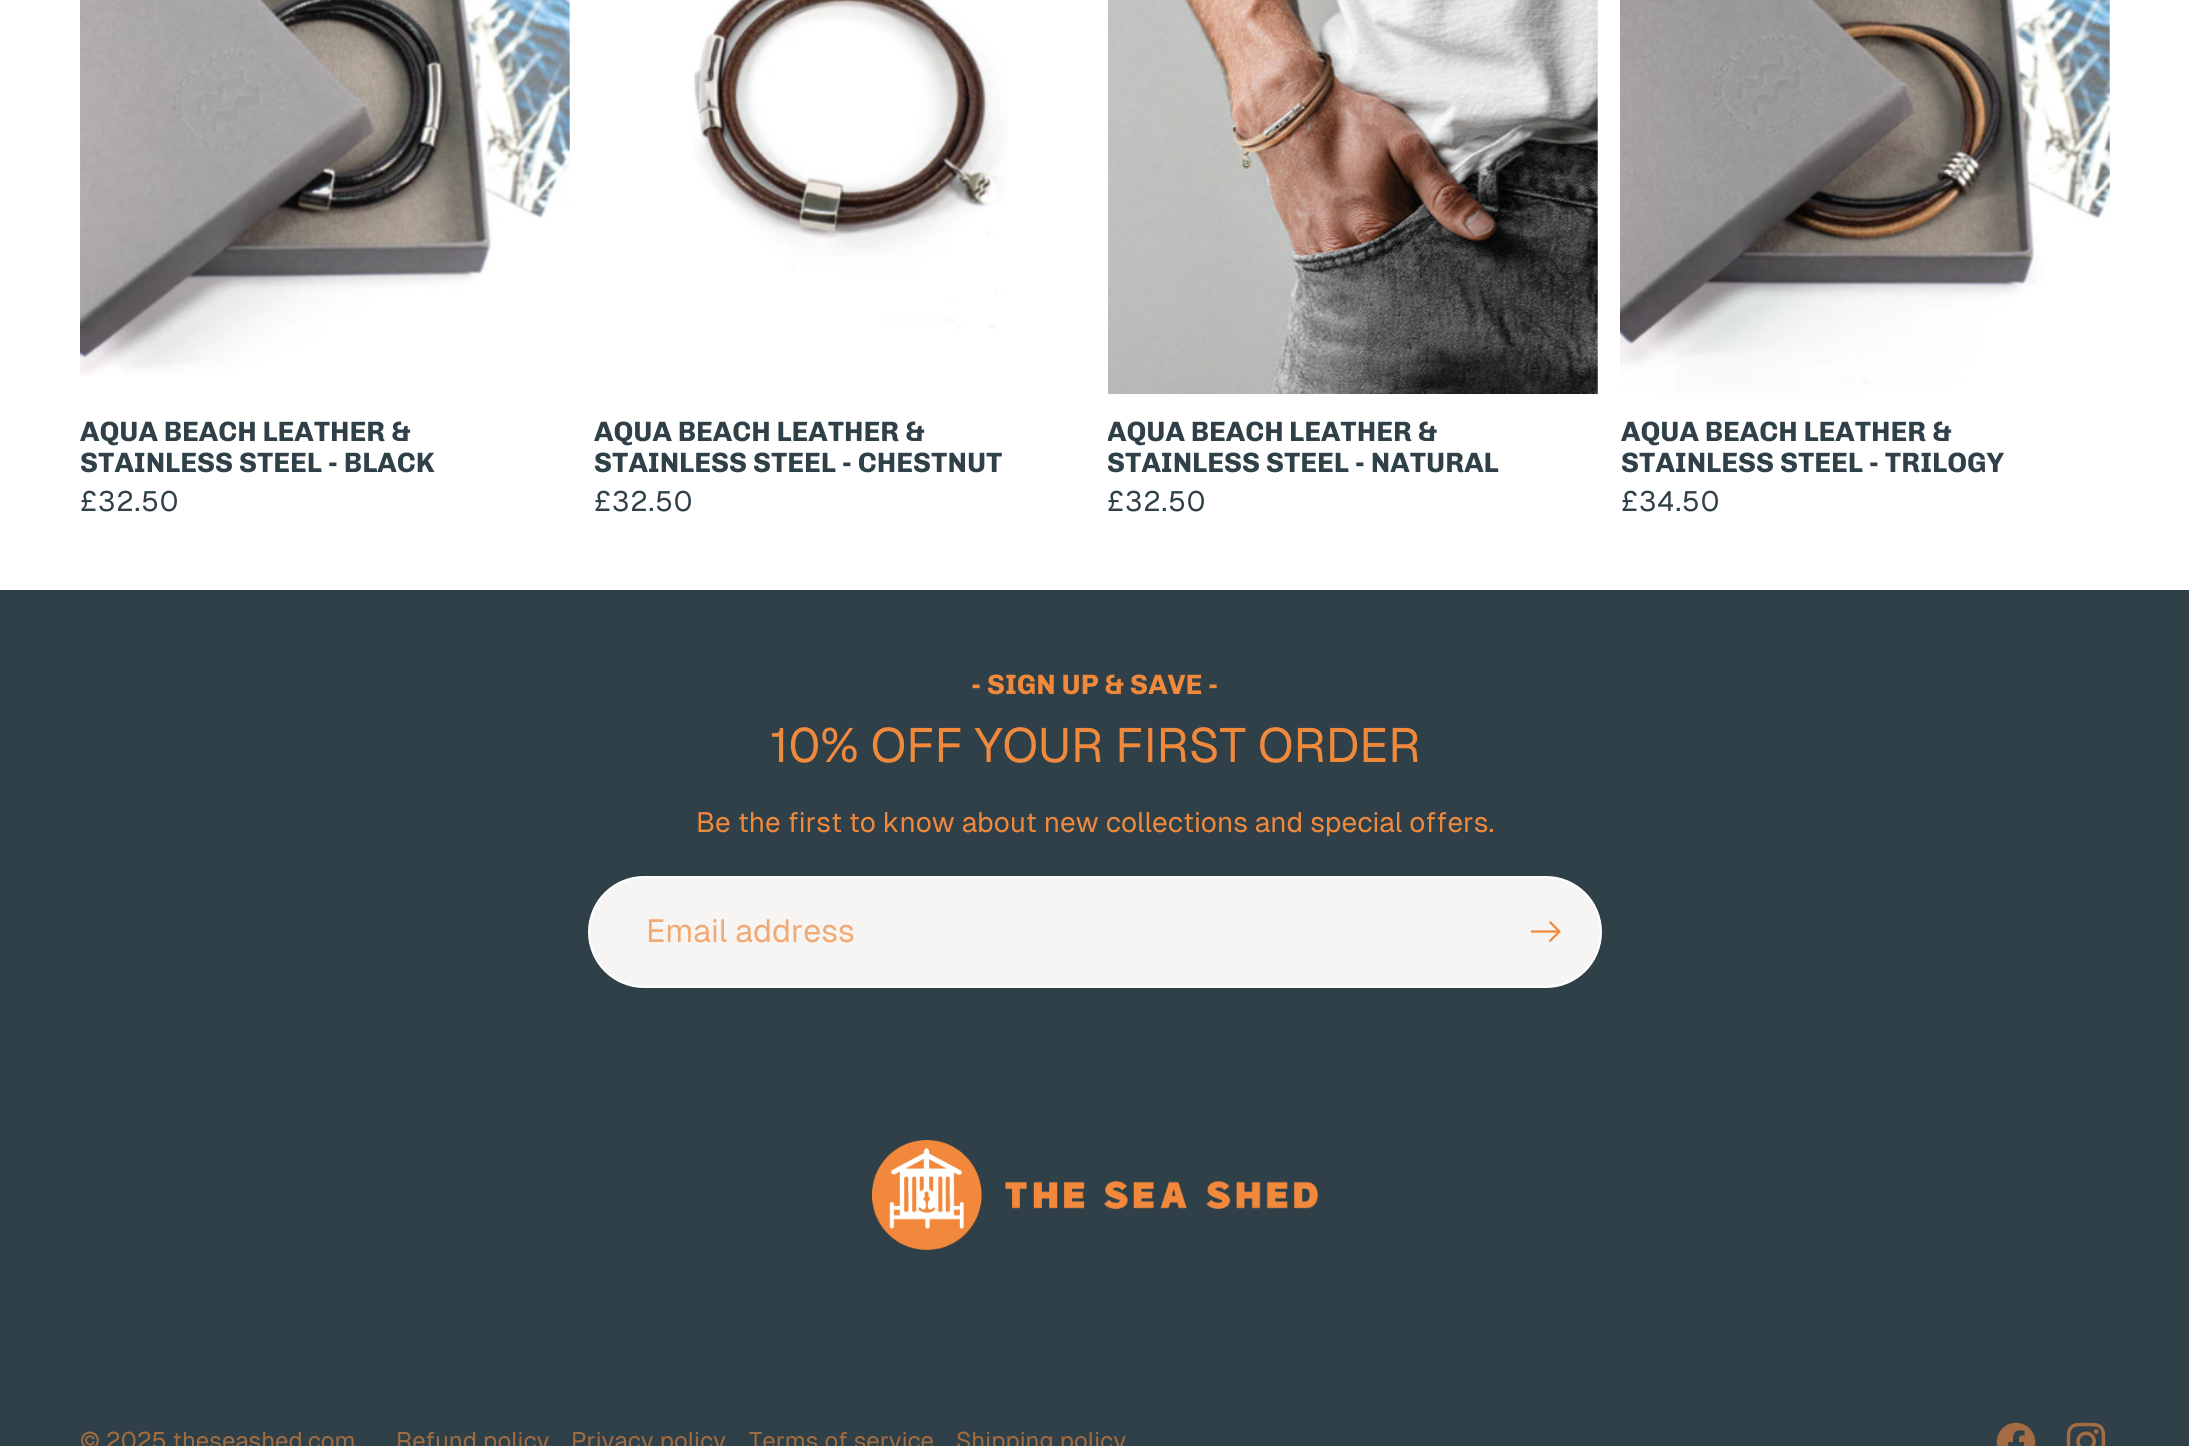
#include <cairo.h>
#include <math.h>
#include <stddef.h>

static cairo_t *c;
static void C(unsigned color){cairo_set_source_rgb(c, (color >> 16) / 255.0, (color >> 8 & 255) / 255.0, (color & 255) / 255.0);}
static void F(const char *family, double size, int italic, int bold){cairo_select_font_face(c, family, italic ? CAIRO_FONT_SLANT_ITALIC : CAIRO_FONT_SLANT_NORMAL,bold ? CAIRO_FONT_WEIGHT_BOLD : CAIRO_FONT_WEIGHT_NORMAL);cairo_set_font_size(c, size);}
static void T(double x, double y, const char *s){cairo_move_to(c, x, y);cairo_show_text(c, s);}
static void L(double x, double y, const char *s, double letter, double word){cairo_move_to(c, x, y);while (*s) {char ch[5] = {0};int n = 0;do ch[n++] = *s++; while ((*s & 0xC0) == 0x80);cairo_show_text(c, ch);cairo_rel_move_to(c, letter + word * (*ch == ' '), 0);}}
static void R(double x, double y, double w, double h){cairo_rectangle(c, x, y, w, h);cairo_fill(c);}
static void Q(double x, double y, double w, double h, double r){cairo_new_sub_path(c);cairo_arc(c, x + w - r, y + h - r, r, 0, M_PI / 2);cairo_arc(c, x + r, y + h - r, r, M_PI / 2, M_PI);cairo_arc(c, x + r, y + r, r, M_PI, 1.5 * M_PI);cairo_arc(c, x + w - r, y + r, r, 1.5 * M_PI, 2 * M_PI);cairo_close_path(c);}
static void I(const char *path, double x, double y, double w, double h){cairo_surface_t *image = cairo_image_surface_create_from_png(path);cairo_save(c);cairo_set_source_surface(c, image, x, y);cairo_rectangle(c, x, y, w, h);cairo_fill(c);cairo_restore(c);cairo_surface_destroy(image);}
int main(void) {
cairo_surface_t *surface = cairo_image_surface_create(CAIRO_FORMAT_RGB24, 2189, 1446);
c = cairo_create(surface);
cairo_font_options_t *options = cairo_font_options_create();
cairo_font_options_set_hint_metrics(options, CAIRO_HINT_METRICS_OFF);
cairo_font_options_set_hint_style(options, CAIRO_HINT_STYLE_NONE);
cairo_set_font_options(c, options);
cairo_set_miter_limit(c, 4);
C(0xffffff);
cairo_paint(c);
I("1.png",80,0,490,376);
F("Chivo",28,0,1);
C(0x2f4048);
T(80,441,"AQUA BEACH LEATHER &");
T(80,472,"STAINLESS STEEL - BLACK");
F("Geist",28,0,0);
L(80,511,"£32.50",1,0);
I("2.png",693,0,315,329);
F("Chivo",28,0,1);
T(594,441,"AQUA BEACH LEATHER &");
T(594,472,"STAINLESS STEEL - CHESTNUT");
F("Geist",28,0,0);
L(594,511,"£32.50",1,0);
I("3.png",1108,0,490,394);
cairo_save(c);
cairo_rectangle(c,1108,0,488,518);
cairo_clip(c);
F("Chivo",28,0,1);
T(1107,441,"AQUA BEACH");
cairo_restore(c);
F("Chivo",28,0,1);
T(1289,441,"LEATHER &");
T(1107,472,"STAINLESS STEEL - NATURAL");
F("Geist",28,0,0);
L(1107,511,"£32.50",1,0);
I("4.png",1620,0,490,393);
F("Chivo",28,0,1);
T(1621,441,"AQUA BEACH LEATHER &");
T(1621,472,"STAINLESS STEEL - TRILOGY");
F("Geist",28,0,0);
L(1621,511,"£34.50",1,0);
R(0,590,2189,856);
F("Chivo",28,0,1);
C(0xf1893d);
T(971,694,"- SIGN UP & SAVE -");
F("Geist",48,0,0);
T(770,762,"10% OFF YOUR FIRST ORDER");
F("Geist",28,0,0);
T(696,832,"Be the first to know about new collections and special offers.");
C(0xf7f5f3);
Q(589,877,1012,110,55);
cairo_fill_preserve(c);
C(0xffffff);
cairo_stroke(c);
F("Geist",32,0,0);
C(0xf3a974);
T(646,942,"Email address");
I("5.png",1530,921,31,21);
I("6.png",872,1140,446,110);
F("Geist",24,0,0);
C(0xa36c41);
T(80,1449,"© 2025 theseashed.com");
T(396,1449,"Refund policy");
T(571,1449,"Privacy policy");
T(749,1449,"Terms of service");
T(956,1449,"Shipping policy");
I("7.png",1996,1422,40,24);
I("8.png",2066,1422,40,24);
cairo_surface_write_to_png(surface, "o.png");
cairo_font_options_destroy(options);
cairo_destroy(c);
cairo_surface_destroy(surface);
return 0;
}
